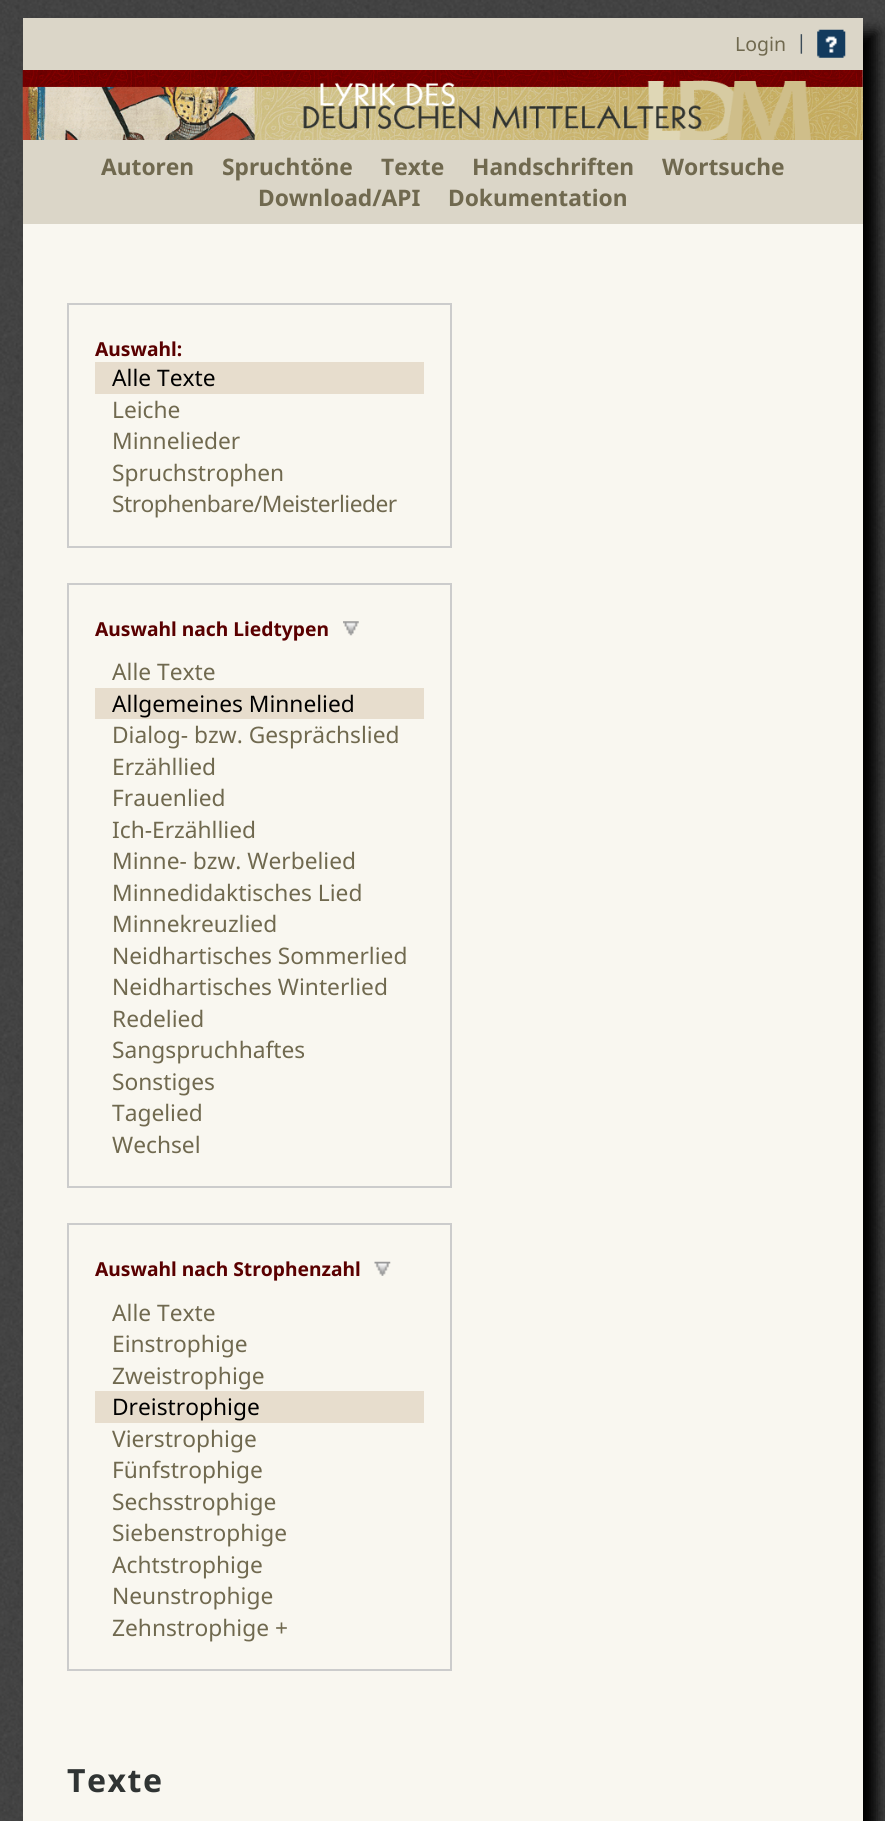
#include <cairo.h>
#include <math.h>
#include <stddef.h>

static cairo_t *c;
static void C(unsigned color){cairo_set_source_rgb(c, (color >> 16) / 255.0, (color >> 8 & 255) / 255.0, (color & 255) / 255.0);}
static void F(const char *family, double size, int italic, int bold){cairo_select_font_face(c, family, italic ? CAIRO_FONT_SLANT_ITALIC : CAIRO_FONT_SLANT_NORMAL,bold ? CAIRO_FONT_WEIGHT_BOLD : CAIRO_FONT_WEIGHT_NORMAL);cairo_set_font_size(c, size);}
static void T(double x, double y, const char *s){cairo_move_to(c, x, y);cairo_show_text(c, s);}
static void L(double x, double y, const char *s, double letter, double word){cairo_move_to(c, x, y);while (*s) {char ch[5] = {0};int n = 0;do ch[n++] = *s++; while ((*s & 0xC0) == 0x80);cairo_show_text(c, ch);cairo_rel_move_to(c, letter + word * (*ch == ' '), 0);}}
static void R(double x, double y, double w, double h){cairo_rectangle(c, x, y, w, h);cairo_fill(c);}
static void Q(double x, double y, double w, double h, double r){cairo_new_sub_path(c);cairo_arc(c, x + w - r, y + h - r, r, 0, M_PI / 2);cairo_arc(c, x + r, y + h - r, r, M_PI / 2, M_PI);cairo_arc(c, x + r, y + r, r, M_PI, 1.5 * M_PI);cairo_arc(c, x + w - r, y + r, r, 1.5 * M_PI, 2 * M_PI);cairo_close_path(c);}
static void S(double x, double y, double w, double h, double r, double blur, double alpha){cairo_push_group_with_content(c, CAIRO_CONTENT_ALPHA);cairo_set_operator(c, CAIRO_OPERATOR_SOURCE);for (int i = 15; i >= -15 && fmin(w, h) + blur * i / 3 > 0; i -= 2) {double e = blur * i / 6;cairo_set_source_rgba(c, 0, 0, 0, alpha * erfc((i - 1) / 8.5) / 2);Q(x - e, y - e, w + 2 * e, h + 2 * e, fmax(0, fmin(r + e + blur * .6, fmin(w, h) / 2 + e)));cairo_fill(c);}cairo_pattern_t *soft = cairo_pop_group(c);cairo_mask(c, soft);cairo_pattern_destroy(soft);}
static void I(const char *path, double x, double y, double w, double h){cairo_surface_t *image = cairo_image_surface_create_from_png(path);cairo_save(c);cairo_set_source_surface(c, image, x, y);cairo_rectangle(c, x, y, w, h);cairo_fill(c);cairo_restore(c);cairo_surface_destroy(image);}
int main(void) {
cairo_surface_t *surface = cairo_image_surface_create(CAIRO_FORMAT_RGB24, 885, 1821);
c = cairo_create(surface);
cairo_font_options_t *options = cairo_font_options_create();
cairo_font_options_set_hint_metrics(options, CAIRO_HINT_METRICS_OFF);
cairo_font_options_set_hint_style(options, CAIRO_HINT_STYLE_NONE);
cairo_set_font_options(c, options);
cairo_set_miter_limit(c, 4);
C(0xffffff);
cairo_paint(c);
I("1.png",0,0,885,1821);
C(0x000000);
S(37,32,840,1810,0,7,1);
C(0xdbd6c8);
R(23,18,840,206);
F("Noto Sans",19.5,0,0);
C(0x70694f);
T(735,51,"Login");
C(0x3b4b58);
T(796,49,"|");
I("2.png",817,29,29,29);
I("3.png",22,70,841,70);
F("Noto Sans",22.75,0,1);
C(0x70694f);
T(101,175,"Autoren");
T(222,175,"Spruchtöne");
T(381,175,"Texte");
T(472,175,"Handschriften");
T(662,175,"Wortsuche");
T(258,206,"Download/API");
T(448,206,"Dokumentation");
C(0xf9f7f0);
R(23,224,840,1597);
cairo_rectangle(c,68,304,383,243);
C(0xcccccc);
cairo_stroke(c);
F("Noto Sans",19.25,0,1);
C(0x5a0000);
T(95,356,"Auswahl:");
C(0xe7ddcd);
R(95,362,329,32);
F("Noto Sans",22.75,0,0);
C(0x000000);
T(112,386,"Alle Texte");
C(0x70694f);
T(112,418,"Leiche");
T(112,449,"Minnelieder");
T(112,481,"Spruchstrophen");
L(112,512,"Strophenbare/Meisterlieder",-.5,0);
cairo_rectangle(c,68,584,383,603);
C(0xcccccc);
cairo_stroke(c);
F("Noto Sans",19.25,0,1);
C(0x5a0000);
T(95,636,"Auswahl nach Liedtypen");
I("4.png",343,621,16,15);
F("Noto Sans",22.75,0,0);
C(0x70694f);
T(112,680,"Alle Texte");
C(0xe7ddcd);
R(95,688,329,31);
C(0x000000);
T(112,712,"Allgemeines Minnelied");
C(0x70694f);
T(112,743,"Dialog- bzw. Gesprächslied");
T(112,775,"Erzähllied");
T(112,806,"Frauenlied");
T(112,838,"Ich-Erzähllied");
T(112,869,"Minne- bzw. Werbelied");
T(112,901,"Minnedidaktisches Lied");
T(112,932,"Minnekreuzlied");
T(112,964,"Neidhartisches Sommerlied");
T(112,995,"Neidhartisches Winterlied");
T(112,1027,"Redelied");
T(112,1058,"Sangspruchhaftes");
T(112,1090,"Sonstiges");
T(112,1121,"Tagelied");
T(112,1153,"Wechsel");
cairo_rectangle(c,68,1224,383,446);
C(0xcccccc);
cairo_stroke(c);
F("Noto Sans",19.25,0,1);
C(0x5a0000);
T(95,1276,"Auswahl nach Strophenzahl");
I("5.png",374,1261,17,15);
F("Noto Sans",22.75,0,0);
C(0x70694f);
T(112,1321,"Alle Texte");
T(112,1352,"Einstrophige");
T(112,1384,"Zweistrophige");
C(0xe7ddcd);
R(95,1391,329,32);
C(0x000000);
T(112,1415,"Dreistrophige");
C(0x70694f);
T(112,1447,"Vierstrophige");
T(112,1478,"Fünfstrophige");
T(112,1510,"Sechsstrophige");
T(112,1541,"Siebenstrophige");
T(112,1573,"Achtstrophige");
T(112,1604,"Neunstrophige");
T(112,1636,"Zehnstrophige +");
F("Noto Sans",32,0,1);
C(0x303433);
L(67,1792,"Texte",1.5,0);
cairo_surface_write_to_png(surface, "o.png");
cairo_font_options_destroy(options);
cairo_destroy(c);
cairo_surface_destroy(surface);
return 0;
}
